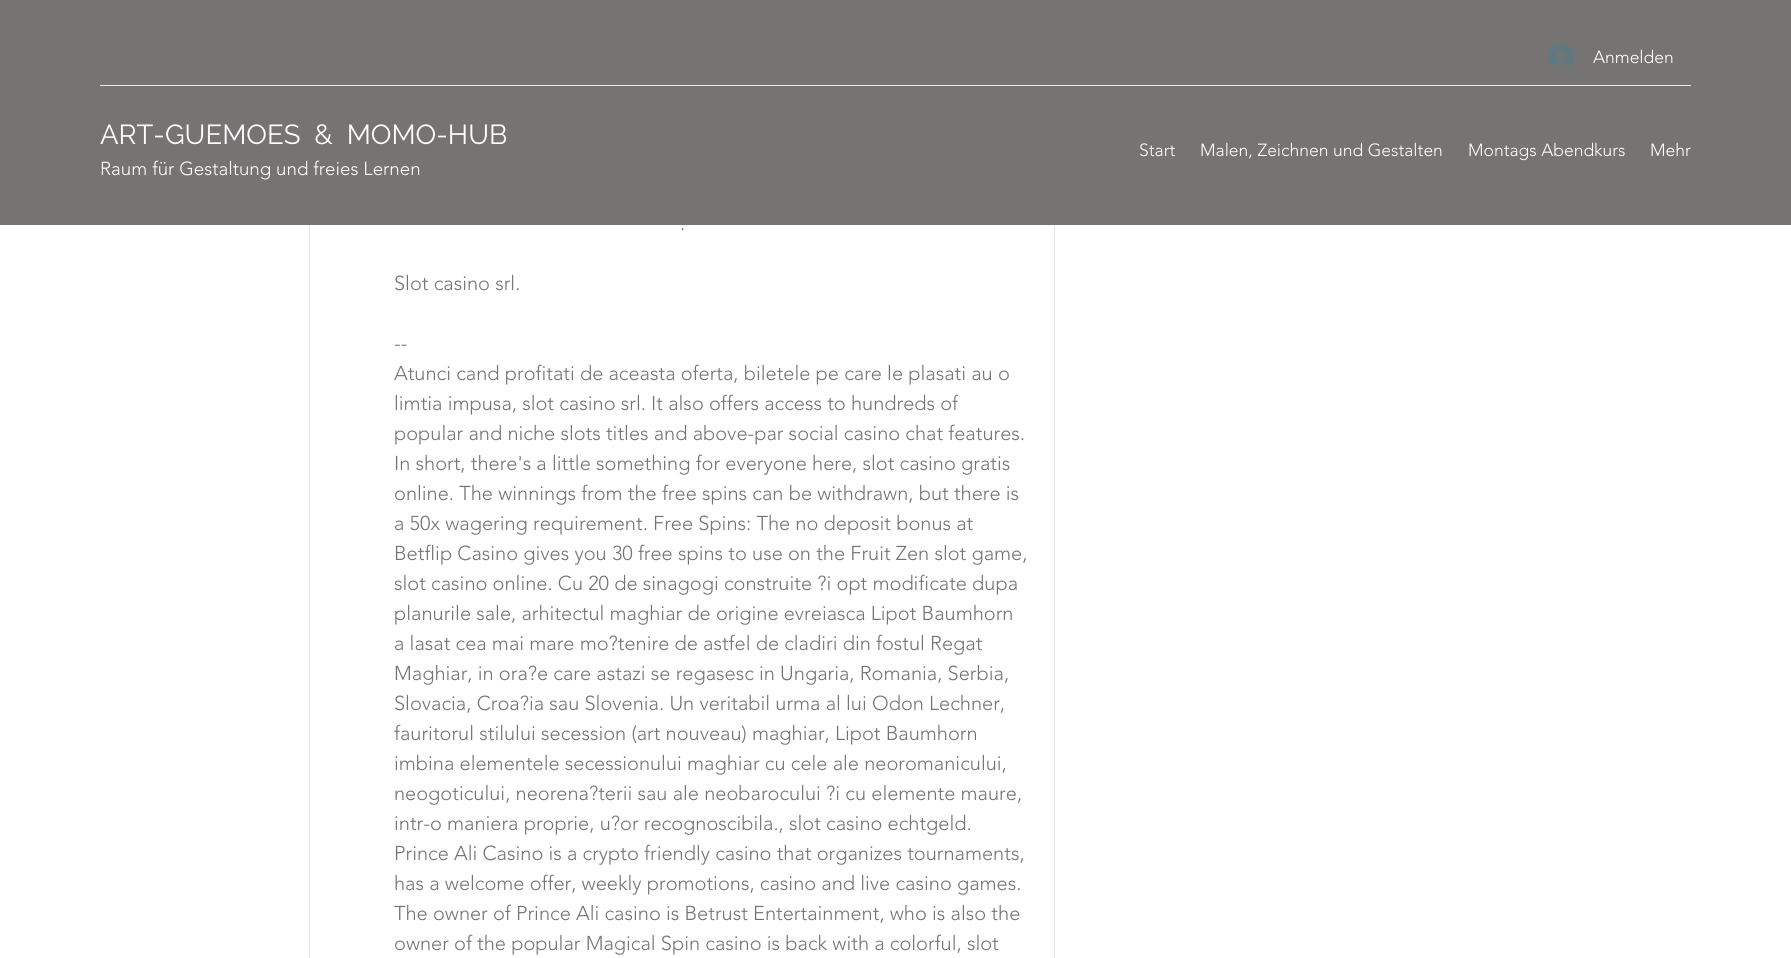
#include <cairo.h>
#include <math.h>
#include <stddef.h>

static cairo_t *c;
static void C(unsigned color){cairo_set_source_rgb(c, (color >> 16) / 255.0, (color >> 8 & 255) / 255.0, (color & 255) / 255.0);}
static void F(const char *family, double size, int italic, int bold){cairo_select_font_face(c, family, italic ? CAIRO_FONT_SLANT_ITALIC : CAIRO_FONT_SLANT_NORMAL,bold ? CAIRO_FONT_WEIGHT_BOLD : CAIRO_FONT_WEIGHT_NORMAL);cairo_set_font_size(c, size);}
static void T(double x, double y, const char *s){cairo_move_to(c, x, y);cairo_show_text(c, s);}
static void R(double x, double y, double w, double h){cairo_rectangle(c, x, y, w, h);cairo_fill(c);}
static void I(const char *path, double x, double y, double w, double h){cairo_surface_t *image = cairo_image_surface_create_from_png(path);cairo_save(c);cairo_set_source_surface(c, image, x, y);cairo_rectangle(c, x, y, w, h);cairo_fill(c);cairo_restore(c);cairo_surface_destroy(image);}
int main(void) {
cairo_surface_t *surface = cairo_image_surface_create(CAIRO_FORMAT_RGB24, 1791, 958);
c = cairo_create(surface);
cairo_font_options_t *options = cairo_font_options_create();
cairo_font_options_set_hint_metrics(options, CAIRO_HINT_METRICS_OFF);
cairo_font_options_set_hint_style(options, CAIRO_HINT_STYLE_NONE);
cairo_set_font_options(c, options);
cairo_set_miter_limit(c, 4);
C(0xffffff);
cairo_paint(c);
cairo_rectangle(c,309.5,-.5,745,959);
C(0xe4e3e3);
cairo_set_line_width(c,1);
cairo_stroke(c);
C(0x767373);
R(0,0,1791,225);
I("1.png",1548,44,27,27);
F("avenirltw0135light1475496 Light",17.5,0,0);
C(0xffffff);
T(1593,63,"Anmelden");
C(0xeaeaea);
R(100,85,1591,1);
F("Raleway",27.5,0,0);
C(0xffffff);
T(100,144,"ART-GUEMOES  &  MOMO-HUB");
F("avenirltw0135light1475496 Light",18.75,0,0);
T(100,175,"Raum für Gestaltung und freies Lernen");
F("avenirltw0135light1475496 Light",17.5,0,0);
T(1139,156,"Start");
T(1200,156,"Malen, Zeichnen und Gestalten");
T(1468,156,"Montags Abendkurs");
T(1650,156,"Mehr");
F("avenirltw0135light1475496 Light",20,0,0);
C(0x767373);
T(680,230,".");
T(394,290,"Slot casino srl.");
T(394,350,"--");
T(394,380,"Atunci cand profitati de aceasta oferta, biletele pe care le plasati au o");
T(394,410,"limtia impusa, slot casino srl. It also offers access to hundreds of");
T(394,440,"popular and niche slots titles and above-par social casino chat features.");
T(394,470,"In short, there's a little something for everyone here, slot casino gratis");
T(394,500,"online. The winnings from the free spins can be withdrawn, but there is");
T(394,530,"a 50x wagering requirement. Free Spins: The no deposit bonus at");
T(394,560,"Betflip Casino gives you 30 free spins to use on the Fruit Zen slot game,");
T(394,590,"slot casino online. Cu 20 de sinagogi construite ?i opt modificate dupa");
T(394,620,"planurile sale, arhitectul maghiar de origine evreiasca Lipot Baumhorn");
T(394,650,"a lasat cea mai mare mo?tenire de astfel de cladiri din fostul Regat");
T(394,680,"Maghiar, in ora?e care astazi se regasesc in Ungaria, Romania, Serbia,");
T(394,710,"Slovacia, Croa?ia sau Slovenia. Un veritabil urma al lui Odon Lechner,");
T(394,740,"fauritorul stilului secession (art nouveau) maghiar, Lipot Baumhorn");
T(394,770,"imbina elementele secessionului maghiar cu cele ale neoromanicului,");
T(394,800,"neogoticului, neorena?terii sau ale neobarocului ?i cu elemente maure,");
T(394,830,"intr-o maniera proprie, u?or recognoscibila., slot casino echtgeld.");
T(394,860,"Prince Ali Casino is a crypto friendly casino that organizes tournaments,");
T(394,890,"has a welcome offer, weekly promotions, casino and live casino games.");
T(394,920,"The owner of Prince Ali casino is Betrust Entertainment, who is also the");
T(394,950,"owner of the popular Magical Spin casino is back with a colorful, slot");
cairo_surface_write_to_png(surface, "o.png");
cairo_font_options_destroy(options);
cairo_destroy(c);
cairo_surface_destroy(surface);
return 0;
}
